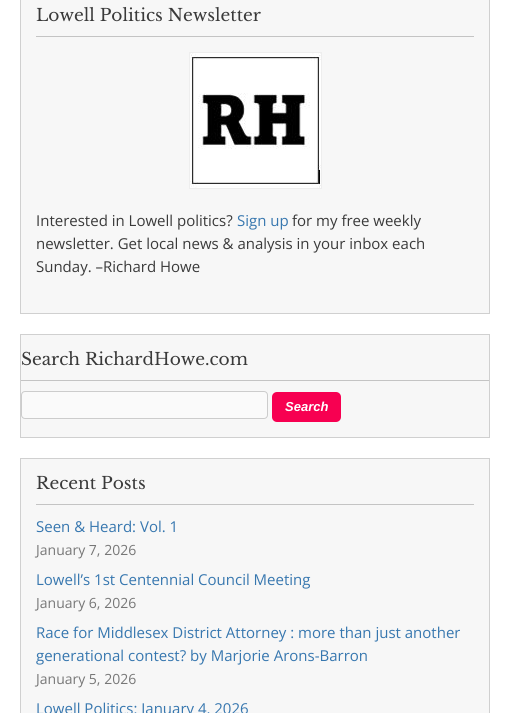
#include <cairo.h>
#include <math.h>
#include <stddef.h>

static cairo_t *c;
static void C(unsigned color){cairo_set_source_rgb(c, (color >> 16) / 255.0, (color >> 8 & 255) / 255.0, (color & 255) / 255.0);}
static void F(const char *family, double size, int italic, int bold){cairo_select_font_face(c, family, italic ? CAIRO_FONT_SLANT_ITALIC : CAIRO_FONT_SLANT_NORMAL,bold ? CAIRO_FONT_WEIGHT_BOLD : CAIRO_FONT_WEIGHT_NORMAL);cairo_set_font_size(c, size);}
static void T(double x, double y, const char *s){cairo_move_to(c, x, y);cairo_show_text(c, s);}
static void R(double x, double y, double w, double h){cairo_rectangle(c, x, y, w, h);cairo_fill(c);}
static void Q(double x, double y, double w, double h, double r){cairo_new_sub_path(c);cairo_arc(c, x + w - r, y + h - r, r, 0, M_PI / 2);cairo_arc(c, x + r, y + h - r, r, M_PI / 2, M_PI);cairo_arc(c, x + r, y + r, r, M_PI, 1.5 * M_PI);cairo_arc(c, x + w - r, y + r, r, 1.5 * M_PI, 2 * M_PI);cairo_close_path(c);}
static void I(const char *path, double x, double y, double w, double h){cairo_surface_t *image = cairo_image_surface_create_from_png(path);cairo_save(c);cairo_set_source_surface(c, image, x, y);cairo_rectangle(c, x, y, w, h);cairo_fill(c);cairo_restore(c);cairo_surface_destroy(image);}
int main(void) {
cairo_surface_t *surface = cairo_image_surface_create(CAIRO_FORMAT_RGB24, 510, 713);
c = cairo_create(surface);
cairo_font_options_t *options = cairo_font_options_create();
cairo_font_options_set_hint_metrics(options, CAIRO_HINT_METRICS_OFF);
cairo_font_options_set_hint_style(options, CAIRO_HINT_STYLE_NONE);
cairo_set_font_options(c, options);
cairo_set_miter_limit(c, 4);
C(0xffffff);
cairo_paint(c);
C(0xf7f7f7);
cairo_rectangle(c,20.5,-.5,469,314);
cairo_fill_preserve(c);
C(0xd0d0d0);
cairo_set_line_width(c,1);
cairo_stroke(c);
C(0xc4c4c4);
R(36,36,438,1);
F("Libre Baskerville",17,0,0);
C(0x3a3a3a);
T(36,21,"Lowell Politics Newsletter");
cairo_rectangle(c,189.5,52.5,132,136);
C(0xeeeeee);
cairo_stroke(c);
I("1.png",190,53,131,135);
F("Open Sans",15,0,0);
C(0x3a3a3a);
T(36,226,"Interested in Lowell politics?");
C(0x3777af);
T(237,226,"Sign up");
C(0x3a3a3a);
T(292,226,"for my free weekly");
T(36,249,"newsletter. Get local news & analysis in your inbox each");
T(36,272,"Sunday. –Richard Howe");
C(0xf7f7f7);
cairo_rectangle(c,20.5,334.5,469,103);
cairo_fill_preserve(c);
C(0xd0d0d0);
cairo_stroke(c);
C(0xc4c4c4);
R(21,380,468,1);
F("Libre Baskerville",17,0,0);
C(0x3a3a3a);
T(21,365,"Search RichardHowe.com");
C(0xfafafa);
Q(21.5,391.5,246,27,3.5);
cairo_fill_preserve(c);
C(0xcccccc);
cairo_stroke(c);
C(0xf70051);
Q(272,392,69,30,5);
cairo_fill(c);
F("Liberation Sans",13,1,1);
C(0xffffff);
T(285,411,"Search");
C(0xf7f7f7);
cairo_rectangle(c,20.5,458.5,469,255);
cairo_fill_preserve(c);
C(0xd0d0d0);
cairo_stroke(c);
C(0xc4c4c4);
R(36,504,438,1);
F("Libre Baskerville",17,0,0);
C(0x3a3a3a);
T(36,489,"Recent Posts");
F("Open Sans",15,0,0);
C(0x3777af);
T(36,532,"Seen & Heard: Vol. 1");
F("Open Sans",14,0,0);
C(0x777777);
T(36,555,"January 7, 2026");
F("Open Sans",15,0,0);
C(0x3777af);
T(36,585,"Lowell’s 1st Centennial Council Meeting");
F("Open Sans",14,0,0);
C(0x777777);
T(36,608,"January 6, 2026");
F("Open Sans",15,0,0);
C(0x3777af);
T(36,638,"Race for Middlesex District Attorney : more than just another");
T(36,661,"generational contest? by Marjorie Arons-Barron");
F("Open Sans",14,0,0);
C(0x777777);
T(36,684,"January 5, 2026");
F("Open Sans",15,0,0);
C(0x3777af);
T(36,714,"Lowell Politics: January 4, 2026");
cairo_surface_write_to_png(surface, "o.png");
cairo_font_options_destroy(options);
cairo_destroy(c);
cairo_surface_destroy(surface);
return 0;
}
